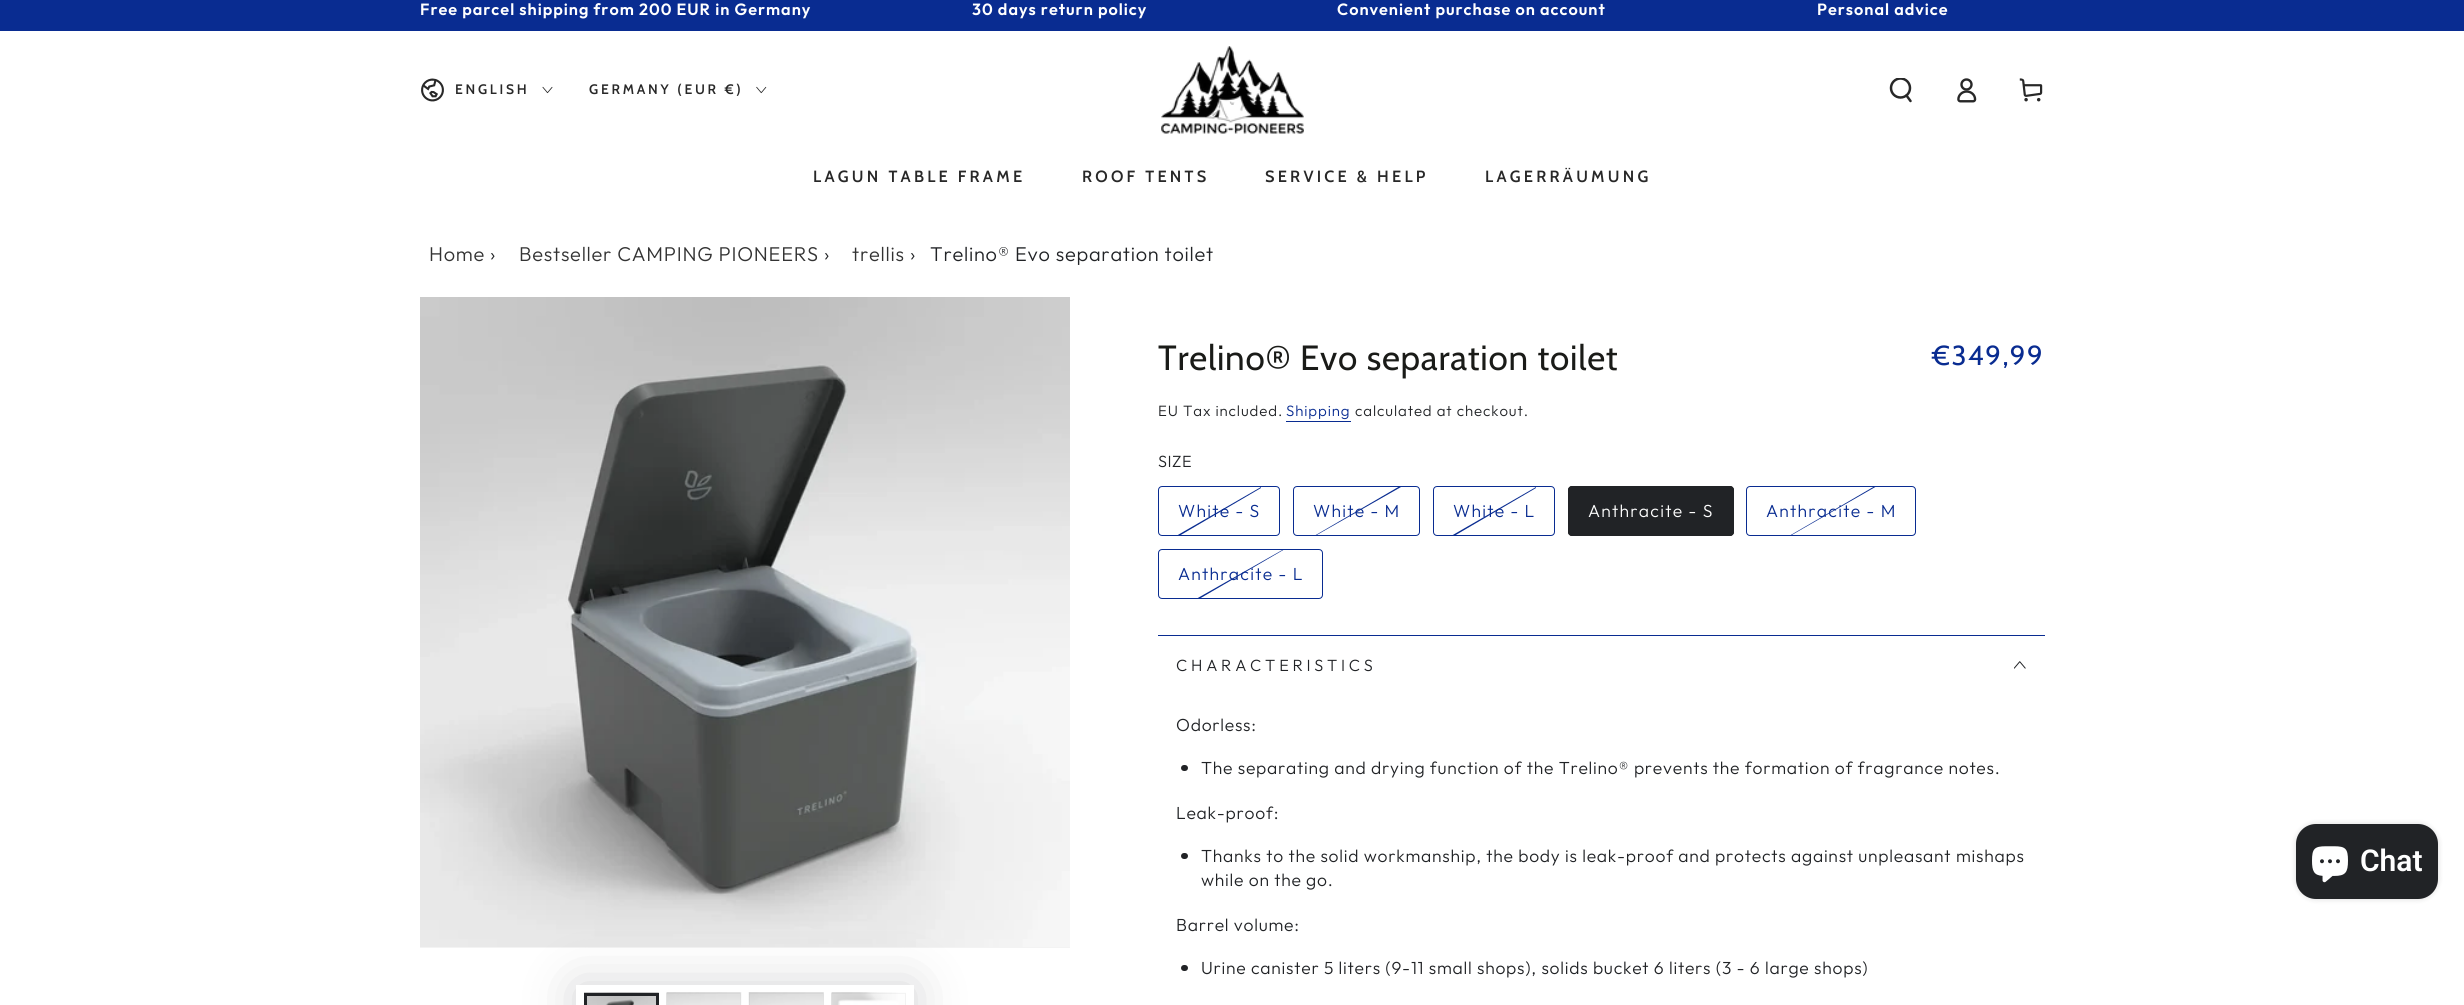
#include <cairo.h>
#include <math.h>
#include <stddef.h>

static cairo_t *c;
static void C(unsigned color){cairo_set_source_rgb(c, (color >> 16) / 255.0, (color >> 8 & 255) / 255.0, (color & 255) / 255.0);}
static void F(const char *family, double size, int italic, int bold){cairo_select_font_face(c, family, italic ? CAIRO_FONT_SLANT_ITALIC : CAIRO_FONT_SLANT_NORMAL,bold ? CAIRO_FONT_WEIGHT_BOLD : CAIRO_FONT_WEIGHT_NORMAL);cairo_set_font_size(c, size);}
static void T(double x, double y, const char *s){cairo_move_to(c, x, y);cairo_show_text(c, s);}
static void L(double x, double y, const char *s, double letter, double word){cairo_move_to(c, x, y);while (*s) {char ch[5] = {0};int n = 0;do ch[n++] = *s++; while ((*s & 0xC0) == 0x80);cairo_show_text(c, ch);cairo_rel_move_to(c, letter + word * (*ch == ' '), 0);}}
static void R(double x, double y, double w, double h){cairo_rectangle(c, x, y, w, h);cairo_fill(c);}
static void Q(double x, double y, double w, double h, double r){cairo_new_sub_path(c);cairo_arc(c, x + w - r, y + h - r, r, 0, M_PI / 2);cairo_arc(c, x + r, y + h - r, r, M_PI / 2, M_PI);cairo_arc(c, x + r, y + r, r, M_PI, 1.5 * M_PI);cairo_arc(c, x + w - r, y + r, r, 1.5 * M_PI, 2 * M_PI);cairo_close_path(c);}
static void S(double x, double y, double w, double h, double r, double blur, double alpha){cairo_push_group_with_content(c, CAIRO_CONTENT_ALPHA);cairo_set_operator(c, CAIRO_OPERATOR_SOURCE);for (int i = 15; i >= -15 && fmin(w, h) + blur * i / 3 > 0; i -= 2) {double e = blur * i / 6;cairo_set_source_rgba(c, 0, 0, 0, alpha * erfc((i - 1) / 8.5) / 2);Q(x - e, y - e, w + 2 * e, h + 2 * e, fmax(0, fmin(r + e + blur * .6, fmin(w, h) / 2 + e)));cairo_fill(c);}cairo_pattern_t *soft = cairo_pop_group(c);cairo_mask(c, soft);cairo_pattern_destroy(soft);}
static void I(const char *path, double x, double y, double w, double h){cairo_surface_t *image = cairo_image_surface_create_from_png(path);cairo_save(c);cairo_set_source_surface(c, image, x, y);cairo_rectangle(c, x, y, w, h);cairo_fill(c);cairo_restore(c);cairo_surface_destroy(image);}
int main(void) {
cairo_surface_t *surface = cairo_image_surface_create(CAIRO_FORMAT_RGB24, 2464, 1005);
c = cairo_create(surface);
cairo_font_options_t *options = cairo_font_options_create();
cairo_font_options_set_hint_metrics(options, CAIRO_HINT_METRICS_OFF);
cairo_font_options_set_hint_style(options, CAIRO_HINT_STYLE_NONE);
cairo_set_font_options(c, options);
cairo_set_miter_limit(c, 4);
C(0xffffff);
cairo_paint(c);
C(0x092c91);
R(0,0,2464,31);
F("Outfit SemiBold",16.25,0,0);
C(0xffffff);
L(420,15,"Free parcel shipping from 200 EUR in Germany",1,0);
L(972,15,"30 days return policy",1,0);
L(1337,15,"Convenient purchase on account",1,0);
L(1817,15,"Personal advice",1,0);
I("1.png",421,78,23,24);
F("Cabin SemiBold",13.75,0,0);
C(0x282828);
L(455,94,"ENGLISH",2.75,0);
I("2.png",542,86,11,8);
L(589,94,"GERMANY (EUR €)",2.75,0);
I("3.png",756,86,11,8);
I("4.png",1161,46,143,88);
cairo_save(c);
cairo_rectangle(c,1889,78,25,25);
cairo_clip(c);
cairo_arc(c,1900.5,88,9.5,0,2 * M_PI);
cairo_set_line_width(c,2.5);
cairo_stroke(c);
cairo_restore(c);
cairo_new_path(c);
cairo_move_to(c,1906.5,95.5);
cairo_line_to(c,1910.5,101);
cairo_set_line_width(c,2.5);
cairo_set_line_cap(c,CAIRO_LINE_CAP_ROUND);
cairo_stroke(c);
I("5.png",1957,78,20,25);
I("6.png",2019,78,24,24);
F("Cabin SemiBold",16.25,0,0);
L(813,182,"LAGUN TABLE FRAME",3.25,0);
L(1082,182,"ROOF TENTS",3.25,0);
L(1265,182,"SERVICE & HELP",3.25,0);
L(1485,182,"LAGERRÄUMUNG",3.25,0);
F("Outfit Light",20,0,0);
C(0x333333);
L(429,261,"Home",.75,0);
C(0x212326);
L(490,261,"›",.75,0);
C(0x333333);
L(519,261,"Bestseller CAMPING PIONEERS",.75,0);
C(0x212326);
L(824,261,"›",.75,0);
C(0x333333);
L(852,261,"trellis",.75,0);
C(0x212326);
L(910,261,"›",.75,0);
L(930,261,"Trelino® Evo separation toilet",.75,0);
C(0xf3f3f3);
R(420,947,650,1);
I("7.png",420,297,650,650);
C(0x212326);
S(576,985,338,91,0,25,.2);
C(0xffffff);
R(576,985,338,20);
I("8.png",584,992,75,13);
cairo_rectangle(c,585.5,994.5,72,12);
C(0x212326);
cairo_set_line_width(c,3);
cairo_set_line_cap(c,CAIRO_LINE_CAP_BUTT);
cairo_stroke(c);
C(0xf3f3f3);
R(666,993,75,12);
I("9.png",666,992,76,13);
cairo_rectangle(c,666.5,993.5,74,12);
cairo_set_source_rgba(c,0.129,0.137,0.149,0.04);
cairo_set_line_width(c,1);
cairo_stroke(c);
I("10.png",748,992,76,13);
cairo_rectangle(c,749.5,993.5,74,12);
cairo_stroke(c);
C(0xf3f3f3);
R(831,993,75,12);
I("11.png",831,992,75,13);
cairo_rectangle(c,831.5,993.5,74,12);
cairo_set_source_rgba(c,0.129,0.137,0.149,0.04);
cairo_stroke(c);
F("Cabin",35,0,0);
C(0x1a1b18);
L(1158,370,"Trelino® Evo separation toilet",.75,0);
F("Cabin",27.5,0,0);
C(0x092c91);
L(1932,365,"€349,99",1.5,0);
F("Outfit Light",15,0,0);
C(0x212326);
L(1158,416,"EU Tax included.",.9,0);
C(0x092c91);
L(1286,416,"Shipping",.9,0);
R(1286,421,65,1);
C(0x212326);
L(1355,416,"calculated at checkout.",.9,0);
F("Outfit Light",16.25,0,0);
L(1158,467,"SIZE",.5,0);
Q(1158.5,486.5,121,49,3.5);
C(0x092c91);
cairo_stroke(c);
cairo_new_path(c);
cairo_move_to(c,1176,536);
cairo_line_to(c,1261,487);
cairo_line_to(c,1261,488);
cairo_line_to(c,1179,536);
cairo_close_path(c);
cairo_fill(c);
F("Outfit Light",17.5,0,0);
L(1178,517,"White - S",1.25,0);
Q(1293.5,486.5,126,49,3.5);
cairo_stroke(c);
cairo_new_path(c);
cairo_move_to(c,1315,536);
cairo_line_to(c,1314,536);
cairo_line_to(c,1400,486);
cairo_line_to(c,1401,487);
cairo_close_path(c);
cairo_fill(c);
L(1313,517,"White - M",1.25,0);
Q(1433.5,486.5,121,49,3.5);
cairo_stroke(c);
cairo_new_path(c);
cairo_move_to(c,1451,536);
cairo_line_to(c,1536,487);
cairo_line_to(c,1536,488);
cairo_line_to(c,1454,536);
cairo_close_path(c);
cairo_fill(c);
L(1453,517,"White - L",1.25,0);
Q(1569.5,487.5,163,47,2.5);
C(0x212326);
cairo_set_line_width(c,3);
cairo_stroke(c);
Q(1568,486,166,50,4);
cairo_fill(c);
C(0xffffff);
L(1588,517,"Anthracite - S",1.25,0);
Q(1746.5,486.5,169,49,3.5);
C(0x092c91);
cairo_set_line_width(c,1);
cairo_stroke(c);
cairo_new_path(c);
cairo_move_to(c,1877,486);
cairo_line_to(c,1790,536);
cairo_line_to(c,1789,536);
cairo_line_to(c,1875,486);
cairo_close_path(c);
cairo_fill(c);
L(1766,517,"Anthracite - M",1.25,0);
Q(1158.5,549.5,164,49,3.5);
cairo_stroke(c);
cairo_new_path(c);
cairo_move_to(c,1285,549);
cairo_line_to(c,1199,599);
cairo_line_to(c,1196,599);
cairo_line_to(c,1284,549);
cairo_close_path(c);
cairo_fill(c);
L(1178,580,"Anthracite - L",1.25,0);
R(1158,635,887,1);
F("Outfit Light",16.25,0,0);
C(0x212326);
L(1176,671,"CHARACTERISTICS",3.75,0);
I("12.png",2014,661,12,8);
F("Outfit Light",17.5,0,0);
L(1176,731,"Odorless:",.75,0);
Q(1181,765,7,6,3);
cairo_fill(c);
L(1201,774,"The separating and drying function of the Trelino® prevents the formation of fragrance notes.",.75,0);
L(1176,819,"Leak-proof:",.75,0);
Q(1181,853,7,6,3);
cairo_fill(c);
L(1201,862,"Thanks to the solid workmanship, the body is leak-proof and protects against unpleasant mishaps",.75,0);
L(1201,886,"while on the go.",.75,0);
L(1176,931,"Barrel volume:",.75,0);
Q(1181,965,7,6,3);
cairo_fill(c);
L(1201,974,"Urine canister 5 liters (9-11 small shops), solids bucket 6 liters (3 - 6 large shops)",.75,0);
C(0x000000);
S(2296,824,142,75,20,3,.15);
C(0x212326);
Q(2296,824,142,75,20);
cairo_fill(c);
I("13.png",2312,846,36,37);
F("Roboto SemiBold",30,0,0);
C(0xffffff);
T(2360,871,"Chat");
cairo_surface_write_to_png(surface, "o.png");
cairo_font_options_destroy(options);
cairo_destroy(c);
cairo_surface_destroy(surface);
return 0;
}
